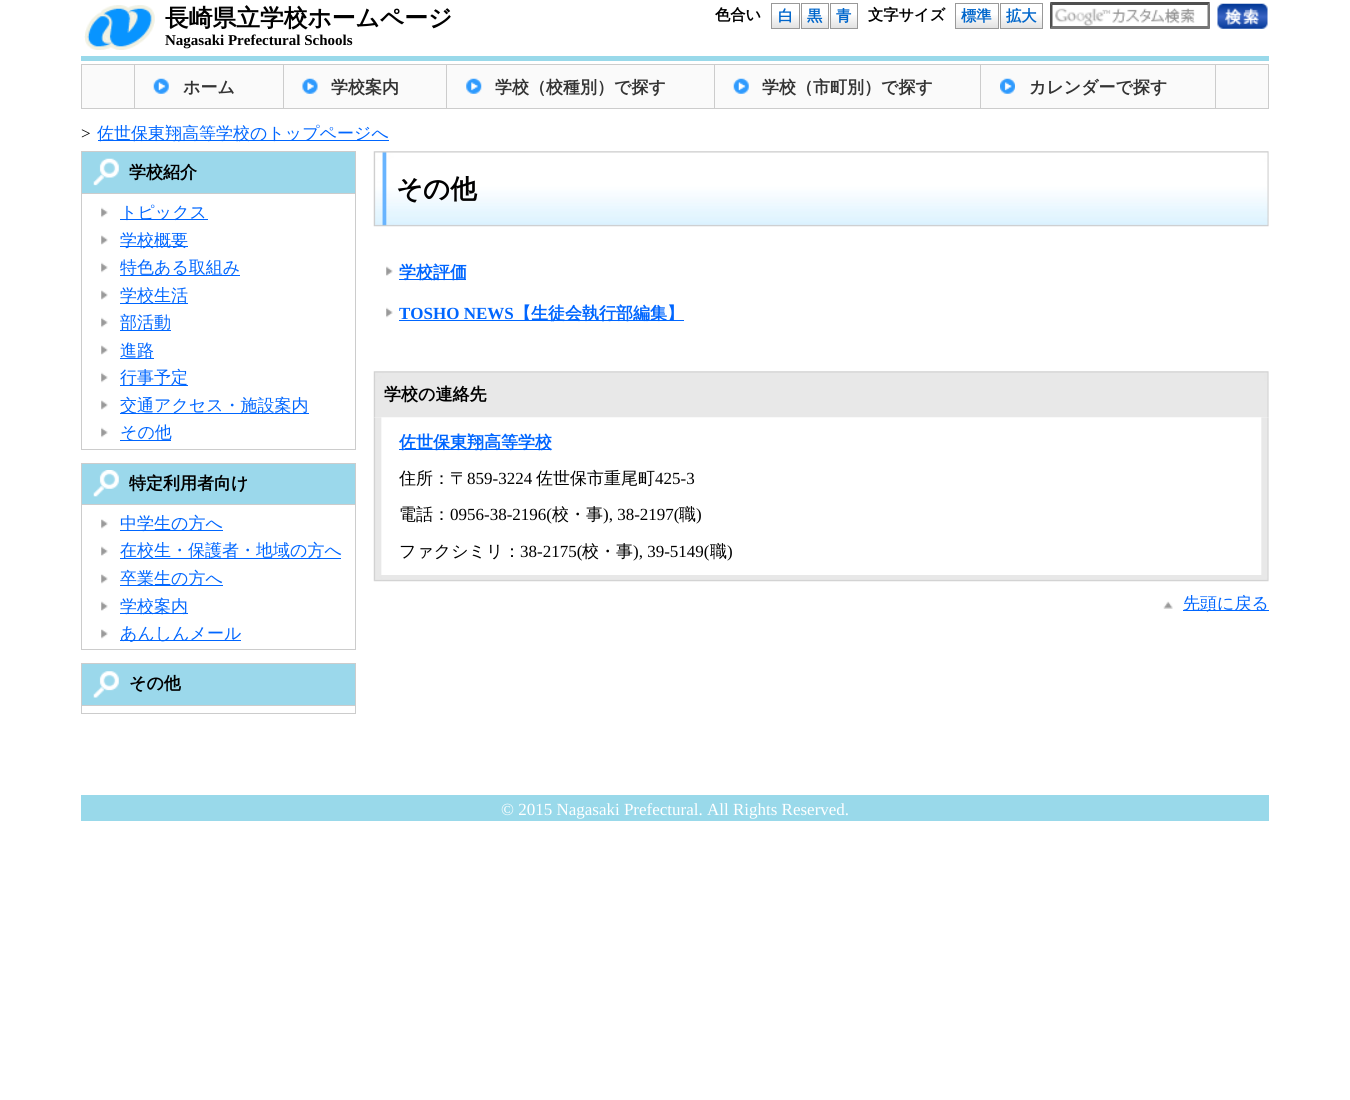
#include <cairo.h>
#include <math.h>
#include <stddef.h>

static cairo_t *c;
static void C(unsigned color){cairo_set_source_rgb(c, (color >> 16) / 255.0, (color >> 8 & 255) / 255.0, (color & 255) / 255.0);}
static void F(const char *family, double size, int italic, int bold){cairo_select_font_face(c, family, italic ? CAIRO_FONT_SLANT_ITALIC : CAIRO_FONT_SLANT_NORMAL,bold ? CAIRO_FONT_WEIGHT_BOLD : CAIRO_FONT_WEIGHT_NORMAL);cairo_set_font_size(c, size);}
static void T(double x, double y, const char *s){cairo_move_to(c, x, y);cairo_show_text(c, s);}
static void R(double x, double y, double w, double h){cairo_rectangle(c, x, y, w, h);cairo_fill(c);}
static void I(const char *path, double x, double y, double w, double h){cairo_surface_t *image = cairo_image_surface_create_from_png(path);cairo_save(c);cairo_set_source_surface(c, image, x, y);cairo_rectangle(c, x, y, w, h);cairo_fill(c);cairo_restore(c);cairo_surface_destroy(image);}
int main(void) {
cairo_surface_t *surface = cairo_image_surface_create(CAIRO_FORMAT_RGB24, 1350, 1100);
c = cairo_create(surface);
cairo_font_options_t *options = cairo_font_options_create();
cairo_font_options_set_hint_metrics(options, CAIRO_HINT_METRICS_OFF);
cairo_font_options_set_hint_style(options, CAIRO_HINT_STYLE_NONE);
cairo_set_font_options(c, options);
cairo_set_miter_limit(c, 4);
cairo_pattern_t *gradient;
C(0xffffff);
cairo_paint(c);
C(0x99d9ea);
R(81,56,1188,5);
I("1.png",84,5,71,45);
F("WenQuanYi Zen Hei",23.75,0,1);
C(0x000000);
T(165,26,"長崎県立学校ホームページ");
F("Liberation Serif",15,0,1);
T(165,45,"Nagasaki Prefectural Schools");
F("WenQuanYi Zen Hei",15.25,0,1);
T(715,20,"色合い");
gradient = cairo_pattern_create_linear(786,3.7,786,28);
cairo_pattern_add_color_stop_rgba(gradient,.4,1,1,1,1);
cairo_pattern_add_color_stop_rgba(gradient,1,0.886,0.886,0.886,1);
cairo_set_source(c,gradient);
cairo_pattern_destroy(gradient);
R(772,15,27,13);
cairo_rectangle(c,771.5,3.5,28,25);
C(0x999999);
cairo_set_line_width(c,1);
cairo_stroke(c);
C(0x0066cb);
T(778,21,"白");
gradient = cairo_pattern_create_linear(815,3.7,815,28);
cairo_pattern_add_color_stop_rgba(gradient,.4,1,1,1,1);
cairo_pattern_add_color_stop_rgba(gradient,1,0.886,0.886,0.886,1);
cairo_set_source(c,gradient);
cairo_pattern_destroy(gradient);
R(802,15,26,13);
cairo_rectangle(c,801.5,3.5,27,25);
C(0x999999);
cairo_stroke(c);
C(0x0066cb);
T(807,21,"黒");
gradient = cairo_pattern_create_linear(844,3.7,844,28);
cairo_pattern_add_color_stop_rgba(gradient,.4,1,1,1,1);
cairo_pattern_add_color_stop_rgba(gradient,1,0.886,0.886,0.886,1);
cairo_set_source(c,gradient);
cairo_pattern_destroy(gradient);
R(831,15,26,13);
cairo_rectangle(c,830.5,3.5,27,25);
C(0x999999);
cairo_stroke(c);
C(0x0066cb);
T(836,21,"青");
C(0x000000);
T(868,20,"文字サイズ");
gradient = cairo_pattern_create_linear(977,3.7,977,28);
cairo_pattern_add_color_stop_rgba(gradient,.4,1,1,1,1);
cairo_pattern_add_color_stop_rgba(gradient,1,0.886,0.886,0.886,1);
cairo_set_source(c,gradient);
cairo_pattern_destroy(gradient);
R(956,15,42,13);
cairo_rectangle(c,955.5,3.5,43,25);
C(0x999999);
cairo_stroke(c);
C(0x0066cb);
T(961,21,"標準");
gradient = cairo_pattern_create_linear(1021,3.7,1021,28);
cairo_pattern_add_color_stop_rgba(gradient,.4,1,1,1,1);
cairo_pattern_add_color_stop_rgba(gradient,1,0.886,0.886,0.886,1);
cairo_set_source(c,gradient);
cairo_pattern_destroy(gradient);
R(1001,15,41,13);
cairo_rectangle(c,1000.5,3.5,42,25);
C(0x999999);
cairo_stroke(c);
C(0x0066cb);
T(1006,21,"拡大");
I("2.png",1055,8,140,18);
C(0x4f4f4f);
cairo_new_path(c);
cairo_move_to(c,1050,2);
cairo_line_to(c,1210,2);
cairo_line_to(c,1208,5);
cairo_line_to(c,1052,5);
cairo_close_path(c);
cairo_fill(c);
C(0x767676);
cairo_new_path(c);
cairo_move_to(c,1210,2.5);
cairo_line_to(c,1210,29);
cairo_line_to(c,1207.5,26);
cairo_line_to(c,1207.5,5);
cairo_close_path(c);
cairo_fill(c);
cairo_new_path(c);
cairo_move_to(c,1210,29);
cairo_line_to(c,1050,29);
cairo_line_to(c,1052,26);
cairo_line_to(c,1208,26);
cairo_close_path(c);
cairo_fill(c);
C(0x4f4f4f);
cairo_new_path(c);
cairo_move_to(c,1050,29);
cairo_line_to(c,1050,2.5);
cairo_line_to(c,1052.5,5);
cairo_line_to(c,1052.5,26);
cairo_close_path(c);
cairo_fill(c);
I("3.png",1217,3,51,26);
C(0xfafafa);
cairo_rectangle(c,81.5,64.5,1187,44);
cairo_fill_preserve(c);
C(0xcccccc);
cairo_stroke(c);
I("4.png",153,78,16,16);
R(283,65,1,43);
R(134,65,1,43);
F("WenQuanYi Zen Hei",17,0,1);
C(0x343434);
T(183,93,"ホーム");
I("5.png",302,78,16,16);
C(0xcccccc);
R(446,65,1,43);
C(0x343434);
T(331,93,"学校案内");
I("6.png",466,78,16,16);
C(0xcccccc);
R(714,65,1,43);
C(0x343434);
T(495,93,"学校（校種別）で探す");
I("4.png",733,78,16,16);
C(0xcccccc);
R(980,65,1,43);
C(0x343434);
T(762,93,"学校（市町別）で探す");
I("7.png",1000,78,15,16);
C(0xcccccc);
R(1215,65,1,43);
C(0x343434);
T(1029,93,"カレンダーで探す");
F("Liberation Serif",17,0,0);
C(0x000000);
T(81,139,">");
C(0x0066ff);
R(98,140,291,1);
F("WenQuanYi Zen Hei Medium",17,0,0);
T(97,139,"佐世保東翔高等学校のトップページへ");
C(0x9bd8eb);
cairo_rectangle(c,81.5,151.5,274,42);
cairo_fill_preserve(c);
C(0xcccccc);
cairo_stroke(c);
I("8.png",93,158,26,28);
F("WenQuanYi Zen Hei",17,0,1);
C(0x000000);
T(129,178,"学校紹介");
C(0xcccccc);
R(355,194,1,256);
R(81,449,275,1);
R(81,194,1,256);
I("9.png",101,207,7,11);
C(0x0066ff);
R(120,219,88,1);
F("WenQuanYi Zen Hei Medium",17,0,0);
T(120,218,"トピックス");
I("10.png",101,235,7,10);
R(120,246,68,1);
T(120,246,"学校概要");
I("9.png",101,262,7,11);
R(120,275,120,1);
T(120,273,"特色ある取組み");
I("11.png",101,290,7,10);
R(120,303,68,1);
T(120,301,"学校生活");
I("9.png",101,317,7,11);
R(120,330,51,1);
T(120,328,"部活動");
I("10.png",101,345,7,10);
R(120,358,34,1);
T(120,356,"進路");
I("9.png",101,372,7,11);
R(120,385,68,1);
T(120,383,"行事予定");
I("10.png",101,400,7,10);
R(120,413,189,1);
T(120,411,"交通アクセス・施設案内");
I("9.png",101,427,7,11);
R(120,440,51,1);
T(120,438,"その他");
C(0x9bd8eb);
cairo_rectangle(c,81.5,463.5,274,41);
cairo_fill_preserve(c);
C(0xcccccc);
cairo_stroke(c);
I("12.png",93,470,26,27);
F("WenQuanYi Zen Hei",17,0,1);
C(0x000000);
T(129,489,"特定利用者向け");
C(0xcccccc);
R(355,505,1,145);
R(81,649,275,1);
R(81,505,1,145);
I("13.png",101,519,7,10);
C(0x0066ff);
R(120,530,103,1);
F("WenQuanYi Zen Hei Medium",17,0,0);
T(120,529,"中学生の方へ");
I("14.png",101,546,7,10);
R(120,558,221,1);
T(120,556,"在校生・保護者・地域の方へ");
I("13.png",101,574,7,10);
R(120,585,103,1);
T(120,584,"卒業生の方へ");
I("14.png",101,601,7,10);
R(120,613,68,1);
T(120,612,"学校案内");
I("13.png",101,629,7,10);
R(120,640,121,1);
T(120,639,"あんしんメール");
C(0x9bd8eb);
cairo_rectangle(c,81.5,663.5,274,42);
cairo_fill_preserve(c);
C(0xcccccc);
cairo_stroke(c);
I("15.png",93,671,26,27);
F("WenQuanYi Zen Hei",17,0,1);
C(0x000000);
T(129,689,"その他");
C(0xcccccc);
R(355,706,1,8);
R(81,713,275,1);
R(81,706,1,8);
I("16.png",373,151,896,76);
F("WenQuanYi Zen Hei",26.5,0,1);
C(0x000000);
T(396,198,"その他");
I("14.png",386,266,7,10);
C(0x0066ff);
R(399,279,67,1);
F("WenQuanYi Zen Hei",17,0,1);
T(399,278,"学校評価");
I("9.png",386,307,7,11);
F("Liberation Serif",17,0,1);
T(399,319,"TOSHO NEWS");
R(399,320,285,1);
F("WenQuanYi Zen Hei",17,0,1);
T(514,319,"【生徒会執行部編集】");
I("17.png",373,371,896,47);
C(0x000000);
T(384,400,"学校の連絡先");
I("18.png",373,417,896,158);
C(0x0066ff);
R(399,449,152,1);
T(399,448,"佐世保東翔高等学校");
F("WenQuanYi Zen Hei Medium",17,0,0);
C(0x000000);
T(399,484,"住所：〒");
F("Liberation Serif",17,0,0);
T(467,484,"859-3224");
F("WenQuanYi Zen Hei Medium",17,0,0);
T(536,484,"佐世保市重尾町");
F("Liberation Serif",17,0,0);
T(655,484,"425-3");
F("WenQuanYi Zen Hei Medium",17,0,0);
T(399,520,"電話：");
F("Liberation Serif",17,0,0);
T(450,520,"0956-38-2196(");
F("WenQuanYi Zen Hei Medium",17,0,0);
T(552,520,"校・事");
F("Liberation Serif",17,0,0);
T(603,520,"), 38-2197(");
F("WenQuanYi Zen Hei Medium",17,0,0);
T(679,520,"職");
F("Liberation Serif",17,0,0);
T(696,520,")");
F("WenQuanYi Zen Hei Medium",17,0,0);
T(399,557,"ファクシミリ：");
F("Liberation Serif",17,0,0);
T(520,557,"38-2175(");
F("WenQuanYi Zen Hei Medium",17,0,0);
T(582,557,"校・事");
F("Liberation Serif",17,0,0);
T(633,557,"), 39-5149(");
F("WenQuanYi Zen Hei Medium",17,0,0);
T(710,557,"職");
F("Liberation Serif",17,0,0);
T(727,557,")");
I("19.png",373,575,896,7);
I("20.png",1163,601,10,8);
C(0x0066ff);
R(1183,610,86,1);
F("WenQuanYi Zen Hei Medium",17,0,0);
T(1183,609,"先頭に戻る");
C(0x99d9ea);
R(81,795,1188,26);
F("Liberation Serif",17,0,0);
C(0xffffff);
T(501,815,"© 2015 Nagasaki Prefectural. All Rights Reserved.");
cairo_surface_write_to_png(surface, "o.png");
cairo_font_options_destroy(options);
cairo_destroy(c);
cairo_surface_destroy(surface);
return 0;
}
